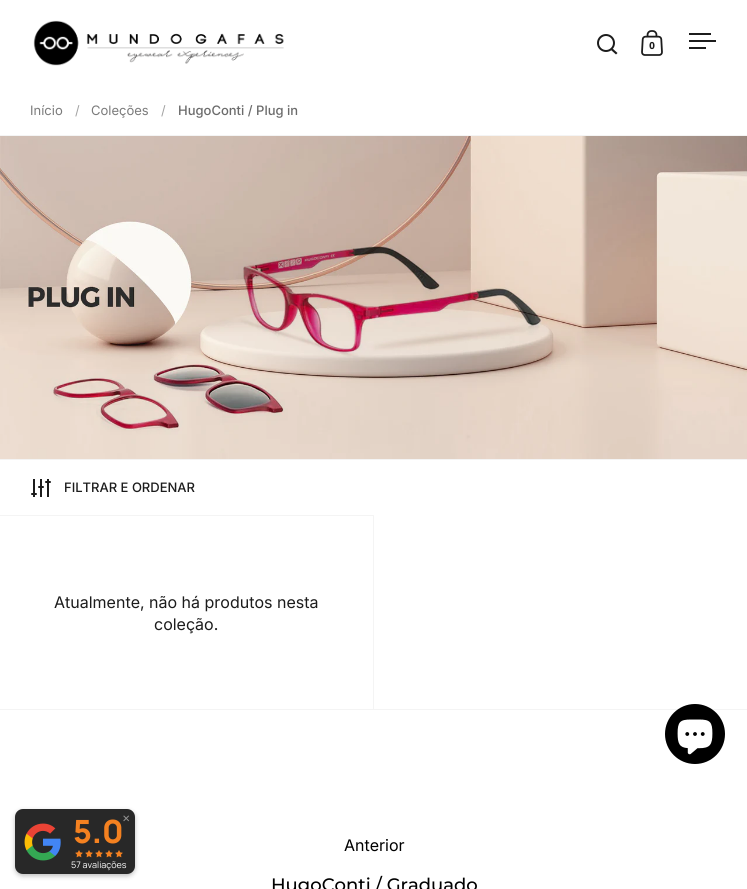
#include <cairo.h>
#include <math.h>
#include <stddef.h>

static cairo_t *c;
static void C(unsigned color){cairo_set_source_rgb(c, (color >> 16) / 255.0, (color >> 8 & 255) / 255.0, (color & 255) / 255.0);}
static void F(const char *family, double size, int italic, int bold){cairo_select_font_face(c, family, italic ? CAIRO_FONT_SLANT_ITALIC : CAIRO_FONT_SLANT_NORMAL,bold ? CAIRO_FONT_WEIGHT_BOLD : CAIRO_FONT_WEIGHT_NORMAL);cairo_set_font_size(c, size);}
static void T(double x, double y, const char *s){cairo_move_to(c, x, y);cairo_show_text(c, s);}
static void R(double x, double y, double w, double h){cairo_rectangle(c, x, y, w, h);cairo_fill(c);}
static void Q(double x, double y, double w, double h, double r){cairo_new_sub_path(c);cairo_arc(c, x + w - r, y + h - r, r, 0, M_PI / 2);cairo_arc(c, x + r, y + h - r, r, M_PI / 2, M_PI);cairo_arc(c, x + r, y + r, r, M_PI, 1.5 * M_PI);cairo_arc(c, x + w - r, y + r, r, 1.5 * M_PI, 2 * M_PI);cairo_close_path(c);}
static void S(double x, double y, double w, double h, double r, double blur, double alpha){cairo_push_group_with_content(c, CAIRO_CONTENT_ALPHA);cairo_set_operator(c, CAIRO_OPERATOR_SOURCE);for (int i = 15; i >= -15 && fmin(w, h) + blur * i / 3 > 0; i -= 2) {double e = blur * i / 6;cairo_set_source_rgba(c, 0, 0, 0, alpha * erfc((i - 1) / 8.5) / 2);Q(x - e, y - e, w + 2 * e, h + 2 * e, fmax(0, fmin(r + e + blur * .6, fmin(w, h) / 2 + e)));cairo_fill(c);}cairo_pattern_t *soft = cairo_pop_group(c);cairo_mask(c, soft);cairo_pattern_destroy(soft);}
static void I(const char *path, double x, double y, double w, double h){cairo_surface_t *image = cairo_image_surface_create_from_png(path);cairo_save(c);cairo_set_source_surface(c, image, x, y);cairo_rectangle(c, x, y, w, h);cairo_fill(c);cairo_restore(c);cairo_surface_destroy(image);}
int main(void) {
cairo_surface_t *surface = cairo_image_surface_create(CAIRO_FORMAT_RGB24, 747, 889);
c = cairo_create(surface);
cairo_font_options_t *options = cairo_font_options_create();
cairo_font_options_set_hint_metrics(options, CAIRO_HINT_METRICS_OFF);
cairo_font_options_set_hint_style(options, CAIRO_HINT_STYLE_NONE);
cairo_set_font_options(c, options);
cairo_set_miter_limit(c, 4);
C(0xffffff);
cairo_paint(c);
I("1.png",33,20,251,46);
cairo_arc(c,606,43,8,0,2 * M_PI);
C(0x1c1c1c);
cairo_stroke(c);
cairo_new_path(c);
cairo_move_to(c,611,50);
cairo_line_to(c,612.5,48.5);
cairo_line_to(c,617.5,53);
cairo_line_to(c,616,54.5);
cairo_close_path(c);
cairo_fill(c);
I("2.png",641,30,22,26);
F("Fira Sans",10,0,1);
T(649,49,"0");
R(689,33,22,2);
R(689,40,27,2);
R(689,47,17,2);
C(0xf4f4f4);
R(0,135,747,1);
F("Inter",13,0,0);
C(0x7b7b7b);
T(30,115,"Início");
C(0xa3a3a3);
T(75,115,"/");
C(0x7b7b7b);
T(91,115,"Coleções");
C(0xa3a3a3);
T(161,115,"/");
F("Inter Medium",13,0,0);
C(0x6b6b6b);
T(178,115,"HugoConti / Plug in");
I("3.png",0,136,747,323);
C(0xf4f4f4);
R(0,459,747,1);
I("4.png",31,479,20,18);
C(0x1c1c1c);
T(64,492,"FILTRAR E ORDENAR");
C(0xf4f4f4);
cairo_new_path(c);
cairo_move_to(c,0,515);
cairo_line_to(c,374,515);
cairo_line_to(c,373,516);
cairo_line_to(c,0,516);
cairo_close_path(c);
cairo_fill(c);
cairo_set_source_rgba(c,0.11,0.11,0.11,0.05);
cairo_new_path(c);
cairo_move_to(c,374,515);
cairo_line_to(c,374,710);
cairo_line_to(c,373,710);
cairo_line_to(c,373,516);
cairo_close_path(c);
cairo_fill(c);
F("Inter",16,0,0);
C(0x1c1c1c);
T(54,608,"Atualmente, não há produtos nesta");
T(154,630,"coleção.");
C(0xf4f4f4);
R(0,709,747,1);
C(0x000000);
T(344,851,"Anterior");
F("Montserrat Medium",18,0,0);
T(271,891,"HugoConti / Graduado");
cairo_new_path(c);
cairo_arc(c,695,734,30,0,2 * M_PI);
cairo_fill(c);
I("5.png",677,719,36,36);
C(0x000000);
S(15,811,120,65,8,2.5,.26);
C(0x282828);
Q(15,809,120,65,8);
cairo_fill(c);
F("DejaVu Sans",10,0,0);
C(0x949494);
T(122,822,"✕");
I("6.png",24,823,37,38);
F("Manrope ExtraBold",32,0,0);
C(0xf48120);
T(73,843,"5.0");
I("7.png",75,850,8,8);
I("7.png",85,850,8,8);
I("7.png",95,850,8,8);
I("7.png",105,850,8,8);
I("7.png",115,850,8,8);
F("Manrope",9,0,0);
C(0xffffff);
T(71,868,"57 avaliações");
cairo_surface_write_to_png(surface, "o.png");
cairo_font_options_destroy(options);
cairo_destroy(c);
cairo_surface_destroy(surface);
return 0;
}
